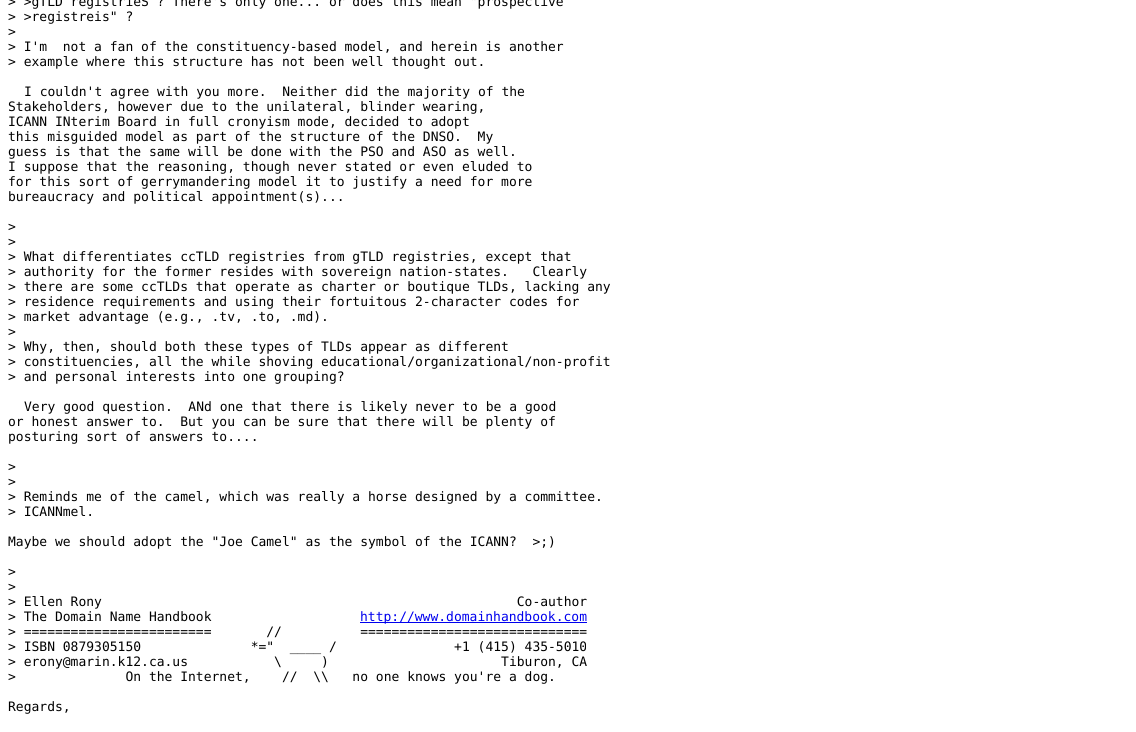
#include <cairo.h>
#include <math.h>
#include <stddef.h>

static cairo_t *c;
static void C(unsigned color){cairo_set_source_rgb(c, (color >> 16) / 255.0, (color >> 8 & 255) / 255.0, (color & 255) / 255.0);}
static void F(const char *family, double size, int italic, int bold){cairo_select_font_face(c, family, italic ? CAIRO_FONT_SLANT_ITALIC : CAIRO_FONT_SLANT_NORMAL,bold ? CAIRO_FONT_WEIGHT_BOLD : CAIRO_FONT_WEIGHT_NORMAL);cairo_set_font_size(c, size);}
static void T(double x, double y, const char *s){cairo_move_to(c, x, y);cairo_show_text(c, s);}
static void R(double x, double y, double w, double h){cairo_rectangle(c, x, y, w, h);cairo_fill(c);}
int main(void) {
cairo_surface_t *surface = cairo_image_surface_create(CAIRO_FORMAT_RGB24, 1136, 732);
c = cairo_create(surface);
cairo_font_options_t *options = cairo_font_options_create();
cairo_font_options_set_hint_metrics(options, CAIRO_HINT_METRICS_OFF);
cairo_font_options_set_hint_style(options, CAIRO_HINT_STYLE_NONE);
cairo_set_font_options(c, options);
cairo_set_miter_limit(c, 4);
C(0xffffff);
cairo_paint(c);
F("DejaVu Sans Mono",13,0,0);
C(0x000000);
T(8,6,"> >gTLD registrieS ? There's only one... or does this mean \"prospective");
T(8,21,"> >registreis\" ?");
T(8,36,">");
T(8,51,"> I'm  not a fan of the constituency-based model, and herein is another");
T(8,66,"> example where this structure has not been well thought out.");
T(24,96,"I couldn't agree with you more.  Neither did the majority of the");
T(8,111,"Stakeholders, however due to the unilateral, blinder wearing,");
T(8,126,"ICANN INterim Board in full cronyism mode, decided to adopt");
T(8,141,"this misguided model as part of the structure of the DNSO.  My");
T(8,156,"guess is that the same will be done with the PSO and ASO as well.");
T(8,171,"I suppose that the reasoning, though never stated or even eluded to");
T(8,186,"for this sort of gerrymandering model it to justify a need for more");
T(8,201,"bureaucracy and political appointment(s)...");
T(8,231,">");
T(8,246,">");
T(8,261,"> What differentiates ccTLD registries from gTLD registries, except that");
T(8,276,"> authority for the former resides with sovereign nation-states.   Clearly");
T(8,291,"> there are some ccTLDs that operate as charter or boutique TLDs, lacking any");
T(8,306,"> residence requirements and using their fortuitous 2-character codes for");
T(8,321,"> market advantage (e.g., .tv, .to, .md).");
T(8,336,">");
T(8,351,"> Why, then, should both these types of TLDs appear as different");
T(8,366,"> constituencies, all the while shoving educational/organizational/non-profit");
T(8,381,"> and personal interests into one grouping?");
T(24,411,"Very good question.  ANd one that there is likely never to be a good");
T(8,426,"or honest answer to.  But you can be sure that there will be plenty of");
T(8,441,"posturing sort of answers to....");
T(8,471,">");
T(8,486,">");
T(8,501,"> Reminds me of the camel, which was really a horse designed by a committee.");
T(8,516,"> ICANNmel.");
T(8,546,"Maybe we should adopt the \"Joe Camel\" as the symbol of the ICANN?  >;)");
T(8,576,">");
T(8,591,">");
T(8,606,"> Ellen Rony                                                     Co-author");
T(8,621,"> The Domain Name Handbook");
C(0x0000ee);
R(360,622,227,1);
T(360,621,"http://www.domainhandbook.com");
C(0x000000);
T(8,636,"> ========================       //          =============================");
T(8,651,"> ISBN 0879305150              *=\"  ____ /               +1 (415) 435-5010");
T(8,666,"> erony@marin.k12.ca.us           \\     )                      Tiburon, CA");
T(8,681,">              On the Internet,    //  \\\\   no one knows you're a dog.");
T(8,711,"Regards,");
cairo_surface_write_to_png(surface, "o.png");
cairo_font_options_destroy(options);
cairo_destroy(c);
cairo_surface_destroy(surface);
return 0;
}
